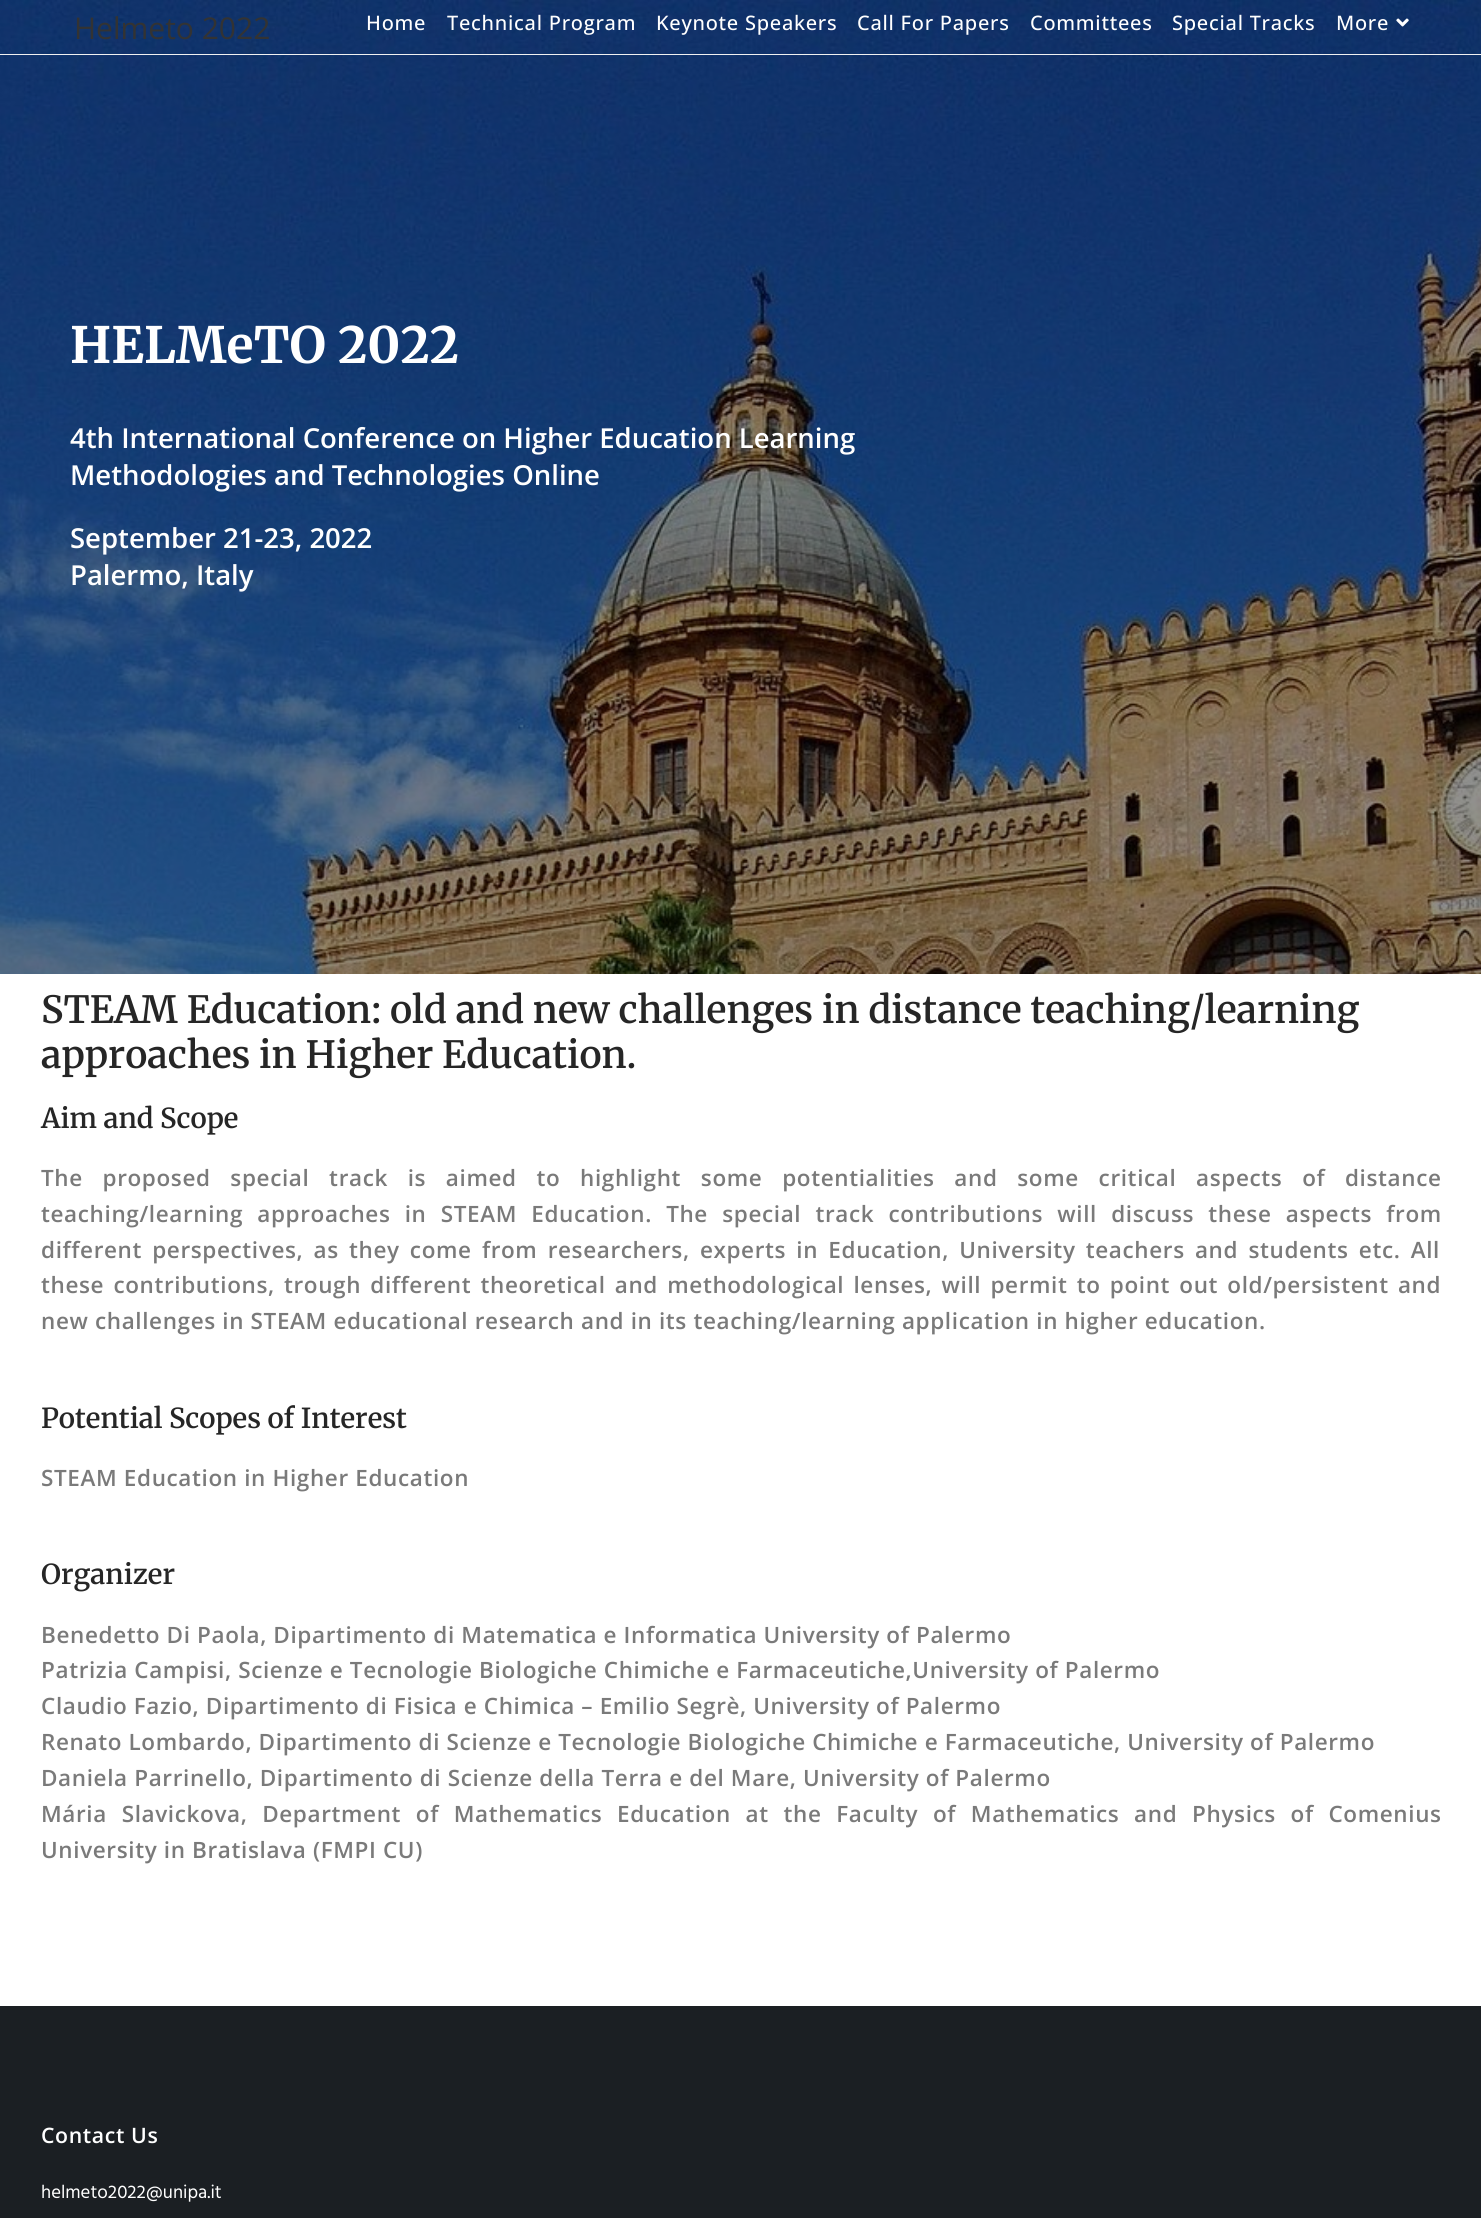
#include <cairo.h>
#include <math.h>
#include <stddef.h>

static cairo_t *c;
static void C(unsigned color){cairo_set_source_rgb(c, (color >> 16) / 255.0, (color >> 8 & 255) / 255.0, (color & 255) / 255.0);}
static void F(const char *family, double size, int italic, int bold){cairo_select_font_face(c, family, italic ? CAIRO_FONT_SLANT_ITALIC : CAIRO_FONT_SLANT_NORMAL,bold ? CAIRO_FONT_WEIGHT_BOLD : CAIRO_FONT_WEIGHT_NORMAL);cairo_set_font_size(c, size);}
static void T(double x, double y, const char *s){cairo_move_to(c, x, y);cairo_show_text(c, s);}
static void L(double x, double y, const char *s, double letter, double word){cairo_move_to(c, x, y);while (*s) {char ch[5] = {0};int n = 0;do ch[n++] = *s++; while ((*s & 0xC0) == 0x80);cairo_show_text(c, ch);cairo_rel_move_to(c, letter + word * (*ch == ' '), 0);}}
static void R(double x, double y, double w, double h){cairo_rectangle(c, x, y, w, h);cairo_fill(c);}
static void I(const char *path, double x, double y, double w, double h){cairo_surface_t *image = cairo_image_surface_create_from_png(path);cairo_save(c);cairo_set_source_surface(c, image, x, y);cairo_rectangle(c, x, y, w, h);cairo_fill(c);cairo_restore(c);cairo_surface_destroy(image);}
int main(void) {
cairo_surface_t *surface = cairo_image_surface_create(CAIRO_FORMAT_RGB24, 1481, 2218);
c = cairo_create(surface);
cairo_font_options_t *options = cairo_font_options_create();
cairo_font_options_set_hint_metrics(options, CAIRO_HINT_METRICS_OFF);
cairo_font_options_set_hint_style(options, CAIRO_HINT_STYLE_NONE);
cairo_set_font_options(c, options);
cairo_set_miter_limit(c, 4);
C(0xffffff);
cairo_paint(c);
I("2.png",0,0,1481,974);
C(0xf1f1f1);
R(0,54,1481,1);
F("Open Sans",30,0,0);
C(0x333333);
T(74,39,"Helmeto 2022");
F("Open Sans Medium",20,0,0);
C(0xffffff);
L(366,30,"Home",.75,0);
L(447,30,"Technical Program",.75,0);
L(656,30,"Keynote Speakers",.75,0);
L(857,30,"Call For Papers",.75,0);
L(1030,30,"Committees",.75,0);
L(1172,30,"Special Tracks",.75,0);
L(1336,30,"More",.75,0);
I("1.png",1396,18,13,9);
F("Merriweather",50,0,1);
T(70,363,"HELMeTO 2022");
F("Open Sans SemiBold",27.5,0,0);
T(70,448,"4th International Conference on Higher Education Learning");
T(70,485,"Methodologies and Technologies Online");
T(70,548,"September 21-23, 2022");
T(70,585,"Palermo, Italy");
F("Merriweather SemiBold",37.5,0,0);
C(0x262626);
T(41,1023,"STEAM Education: old and new challenges in distance teaching/learning");
T(41,1068,"approaches in Higher Education.");
F("Merriweather SemiBold",27.5,0,0);
T(41,1128,"Aim and Scope");
F("Open Sans SemiBold",22.5,0,0);
C(0x7a7a7a);
L(41,1186,"The proposed special track is aimed to highlight some potentialities and some critical aspects of distance",.62,13.25);
L(41,1222,"teaching/learning approaches in STEAM Education. The special track contributions will discuss these aspects from",.62,7.75);
L(41,1258,"different perspectives, as they come from researchers, experts in Education, University teachers and students etc. All",.62,3.75);
L(41,1293,"these contributions, trough different theoretical and methodological lenses, will permit to point out old/persistent and",.62,2.75);
L(41,1329,"new challenges in STEAM educational research and in its teaching/learning application in higher education.",.62,0);
F("Merriweather SemiBold",27.5,0,0);
C(0x262626);
T(41,1428,"Potential Scopes of Interest");
F("Open Sans SemiBold",22.5,0,0);
C(0x7a7a7a);
L(41,1486,"STEAM Education in Higher Education",.62,0);
F("Merriweather SemiBold",27.5,0,0);
C(0x262626);
T(41,1584,"Organizer");
F("Open Sans SemiBold",22.5,0,0);
C(0x7a7a7a);
L(41,1643,"Benedetto Di Paola, Dipartimento di Matematica e Informatica University of Palermo",.62,0);
L(41,1678,"Patrizia Campisi, Scienze e Tecnologie Biologiche Chimiche e Farmaceutiche,University of Palermo",.62,0);
L(41,1714,"Claudio Fazio, Dipartimento di Fisica e Chimica – Emilio Segrè, University of Palermo",.62,0);
L(41,1750,"Renato Lombardo, Dipartimento di Scienze e Tecnologie Biologiche Chimiche e Farmaceutiche, University of Palermo",.62,0);
L(41,1786,"Daniela Parrinello, Dipartimento di Scienze della Terra e del Mare, University of Palermo",.62,0);
L(41,1822,"Mária Slavickova, Department of Mathematics Education at the Faculty of Mathematics and Physics of Comenius",.62,8.25);
L(41,1858,"University in Bratislava (FMPI CU)",.62,0);
C(0x1b1f23);
R(0,2006,1481,212);
F("Open Sans SemiBold",21.25,0,0);
C(0xffffff);
L(41,2143,"Contact Us",.62,0);
F("Hind",18.75,0,0);
T(41,2198,"helmeto2022@unipa.it");
cairo_surface_write_to_png(surface, "o.png");
cairo_font_options_destroy(options);
cairo_destroy(c);
cairo_surface_destroy(surface);
return 0;
}
